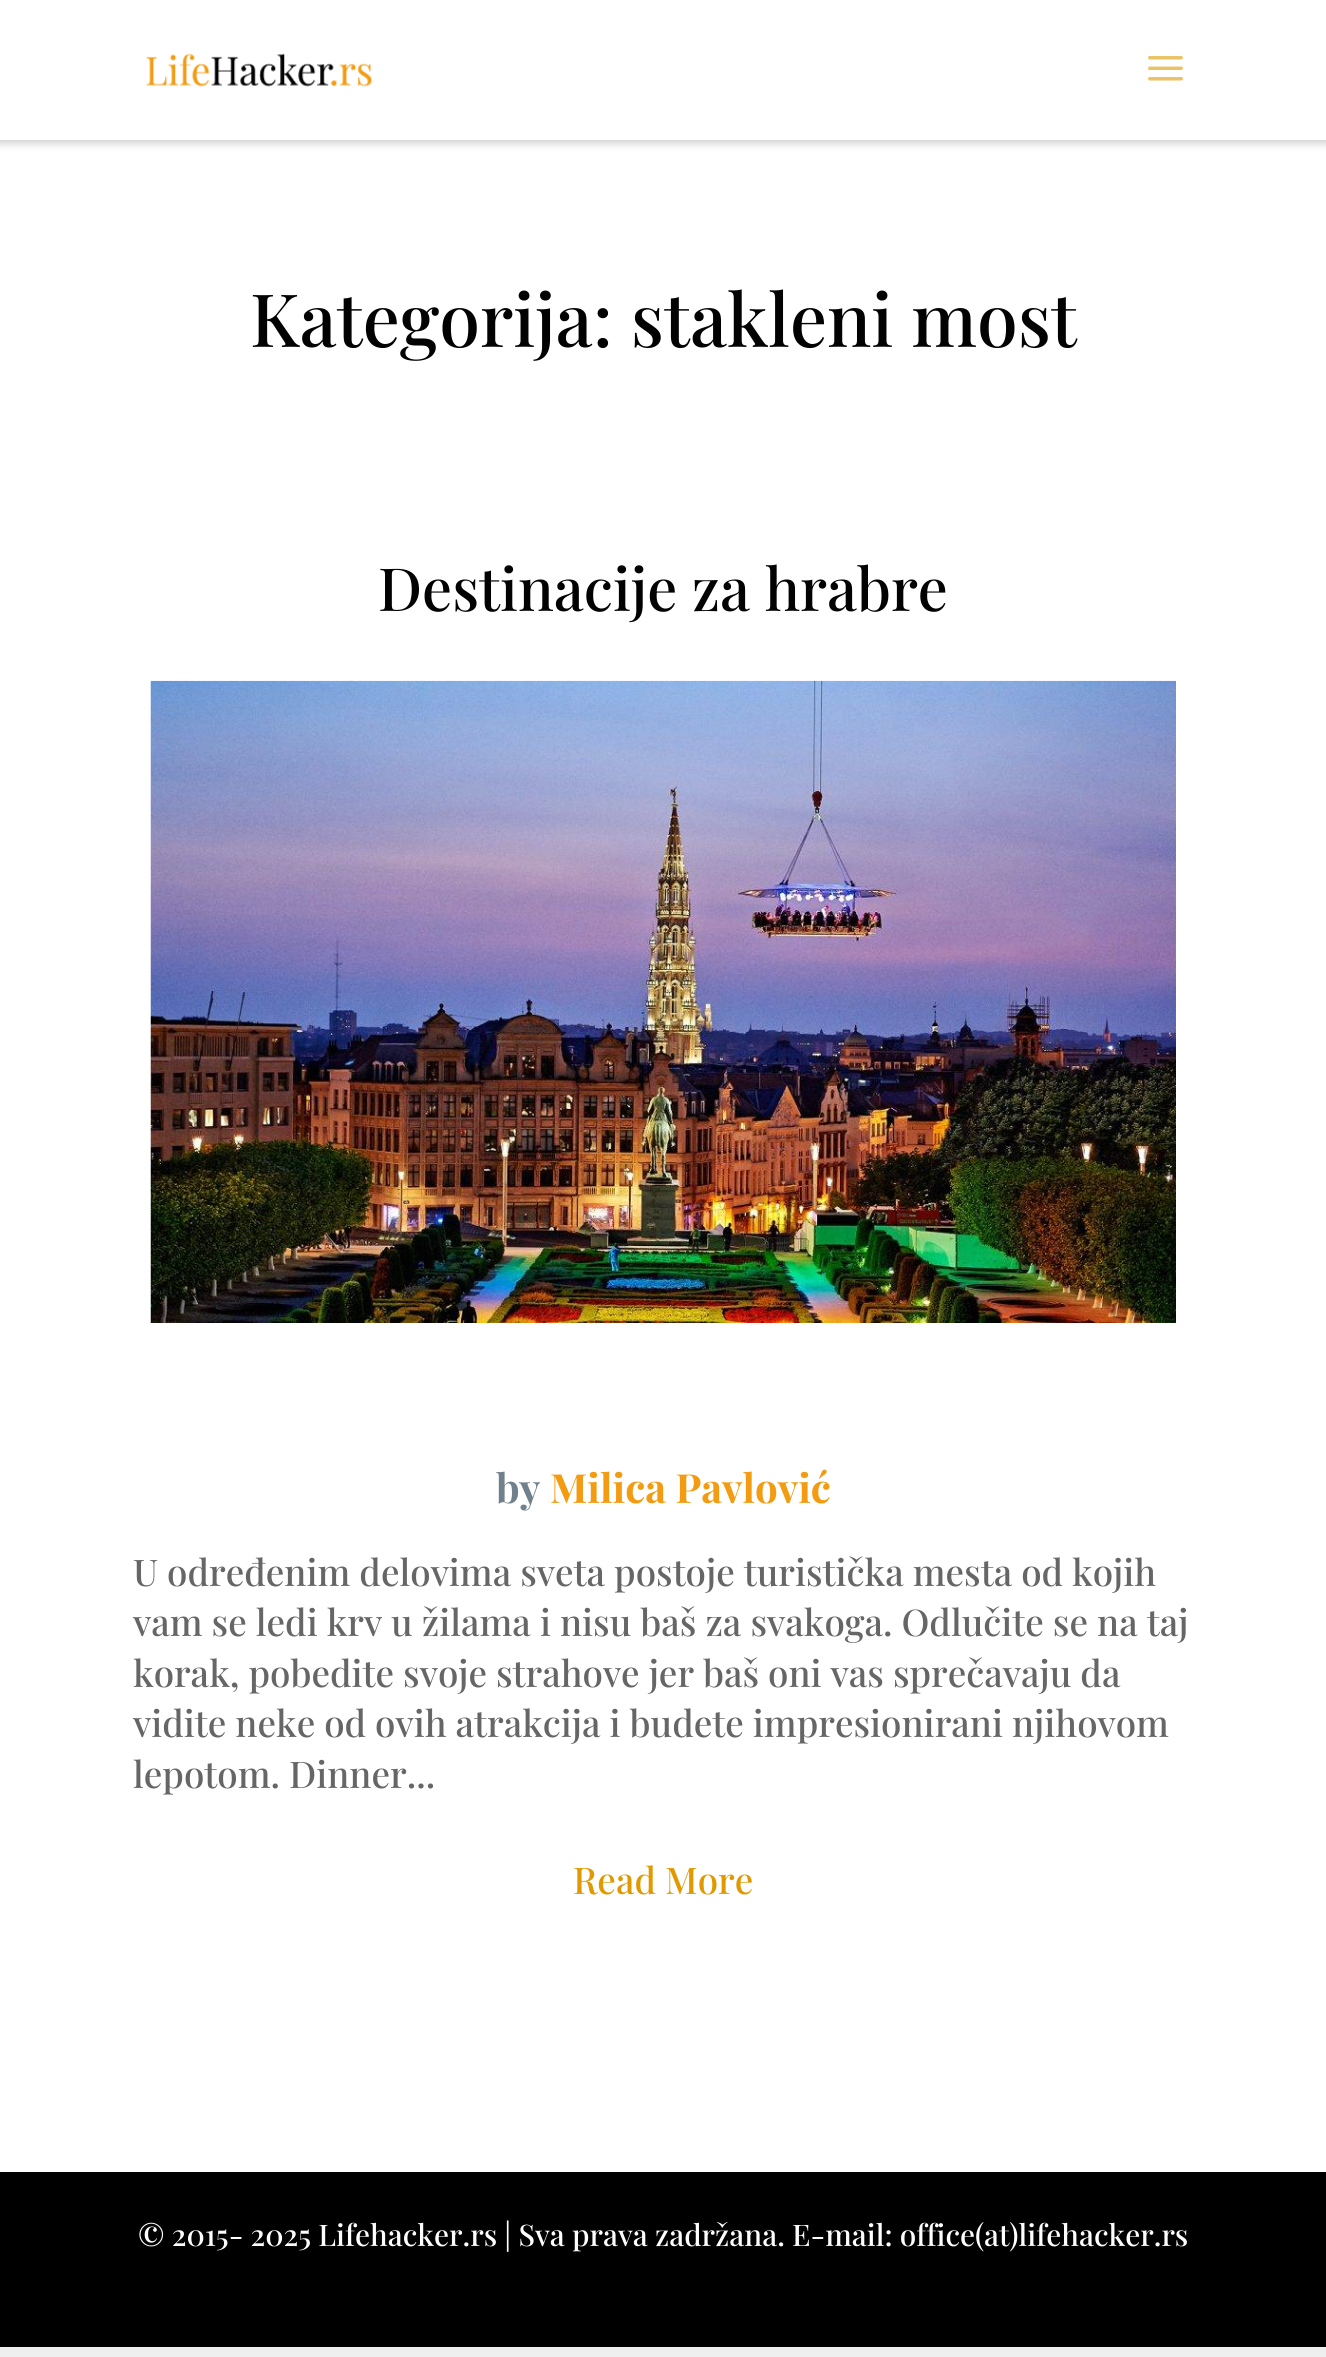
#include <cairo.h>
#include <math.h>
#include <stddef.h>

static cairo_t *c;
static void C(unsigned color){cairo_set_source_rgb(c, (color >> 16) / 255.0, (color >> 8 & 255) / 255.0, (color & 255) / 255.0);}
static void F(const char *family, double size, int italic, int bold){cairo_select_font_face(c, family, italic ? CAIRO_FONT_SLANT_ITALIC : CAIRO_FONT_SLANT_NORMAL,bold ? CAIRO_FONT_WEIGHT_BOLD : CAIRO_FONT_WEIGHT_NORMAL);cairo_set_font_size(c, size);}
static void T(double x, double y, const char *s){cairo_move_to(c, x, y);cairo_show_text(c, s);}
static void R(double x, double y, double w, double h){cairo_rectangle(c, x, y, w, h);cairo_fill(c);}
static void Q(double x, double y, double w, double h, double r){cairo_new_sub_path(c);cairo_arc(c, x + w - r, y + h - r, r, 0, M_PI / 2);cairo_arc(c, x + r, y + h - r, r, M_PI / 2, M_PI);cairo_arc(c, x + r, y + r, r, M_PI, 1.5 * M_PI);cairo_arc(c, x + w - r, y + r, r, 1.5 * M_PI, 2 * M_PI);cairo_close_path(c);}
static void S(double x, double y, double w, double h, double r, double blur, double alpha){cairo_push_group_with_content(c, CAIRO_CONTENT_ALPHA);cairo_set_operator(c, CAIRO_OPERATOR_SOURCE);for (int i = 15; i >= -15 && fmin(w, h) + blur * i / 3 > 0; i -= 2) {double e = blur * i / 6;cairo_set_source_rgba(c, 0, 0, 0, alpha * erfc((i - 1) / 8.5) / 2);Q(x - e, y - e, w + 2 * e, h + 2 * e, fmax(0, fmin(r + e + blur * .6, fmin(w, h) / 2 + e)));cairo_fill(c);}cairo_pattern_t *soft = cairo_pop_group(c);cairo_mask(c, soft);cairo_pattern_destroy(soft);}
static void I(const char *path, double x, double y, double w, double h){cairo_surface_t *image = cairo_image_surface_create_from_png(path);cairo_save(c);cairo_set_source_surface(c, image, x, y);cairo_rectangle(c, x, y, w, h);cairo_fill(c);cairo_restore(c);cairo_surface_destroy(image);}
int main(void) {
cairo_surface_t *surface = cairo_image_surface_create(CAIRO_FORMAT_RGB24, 1326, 2357);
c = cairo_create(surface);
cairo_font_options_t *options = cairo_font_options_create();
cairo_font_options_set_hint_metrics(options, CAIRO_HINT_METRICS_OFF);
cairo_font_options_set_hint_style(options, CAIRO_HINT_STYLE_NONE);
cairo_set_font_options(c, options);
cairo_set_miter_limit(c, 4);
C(0xefefef);
cairo_paint(c);
C(0xffffff);
R(0,140,1326,2032);
C(0x000000);
S(-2,-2,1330,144,0,5,.24);
C(0xffffff);
R(0,0,1326,140);
I("1.png",146,53,227,34);
I("2.png",1148,56,35,25);
F("Playfair Display Medium",73.5,0,0);
C(0x020202);
T(250,347,"Kategorija: stakleni most");
F("Playfair Display Medium",59.5,0,0);
T(378,611,"Destinacije za hrabre");
I("3.png",150,680,1026,643);
F("Playfair Display",40.25,0,1);
C(0x71818c);
T(496,1503,"by");
C(0xf39c12);
T(550,1503,"Milica Pavlović");
F("Playfair Display Medium",36.75,0,0);
C(0x666666);
T(133,1586,"U određenim delovima sveta postoje turistička mesta od kojih");
T(133,1636,"vam se ledi krv u žilama i nisu baš za svakoga. Odlučite se na taj");
T(133,1687,"korak, pobedite svoje strahove jer baš oni vas sprečavaju da");
T(133,1737,"vidite neke od ovih atrakcija i budete impresionirani njihovom");
T(133,1788,"lepotom. Dinner...");
C(0xe09900);
T(573,1894,"Read More");
C(0x000000);
R(0,2172,1326,175);
F("Playfair Display Medium",29.75,0,0);
C(0xffffff);
T(138,2246,"© 2015- 2025 Lifehacker.rs | Sva prava zadržana. E-mail: office(at)lifehacker.rs");
cairo_surface_write_to_png(surface, "o.png");
cairo_font_options_destroy(options);
cairo_destroy(c);
cairo_surface_destroy(surface);
return 0;
}
